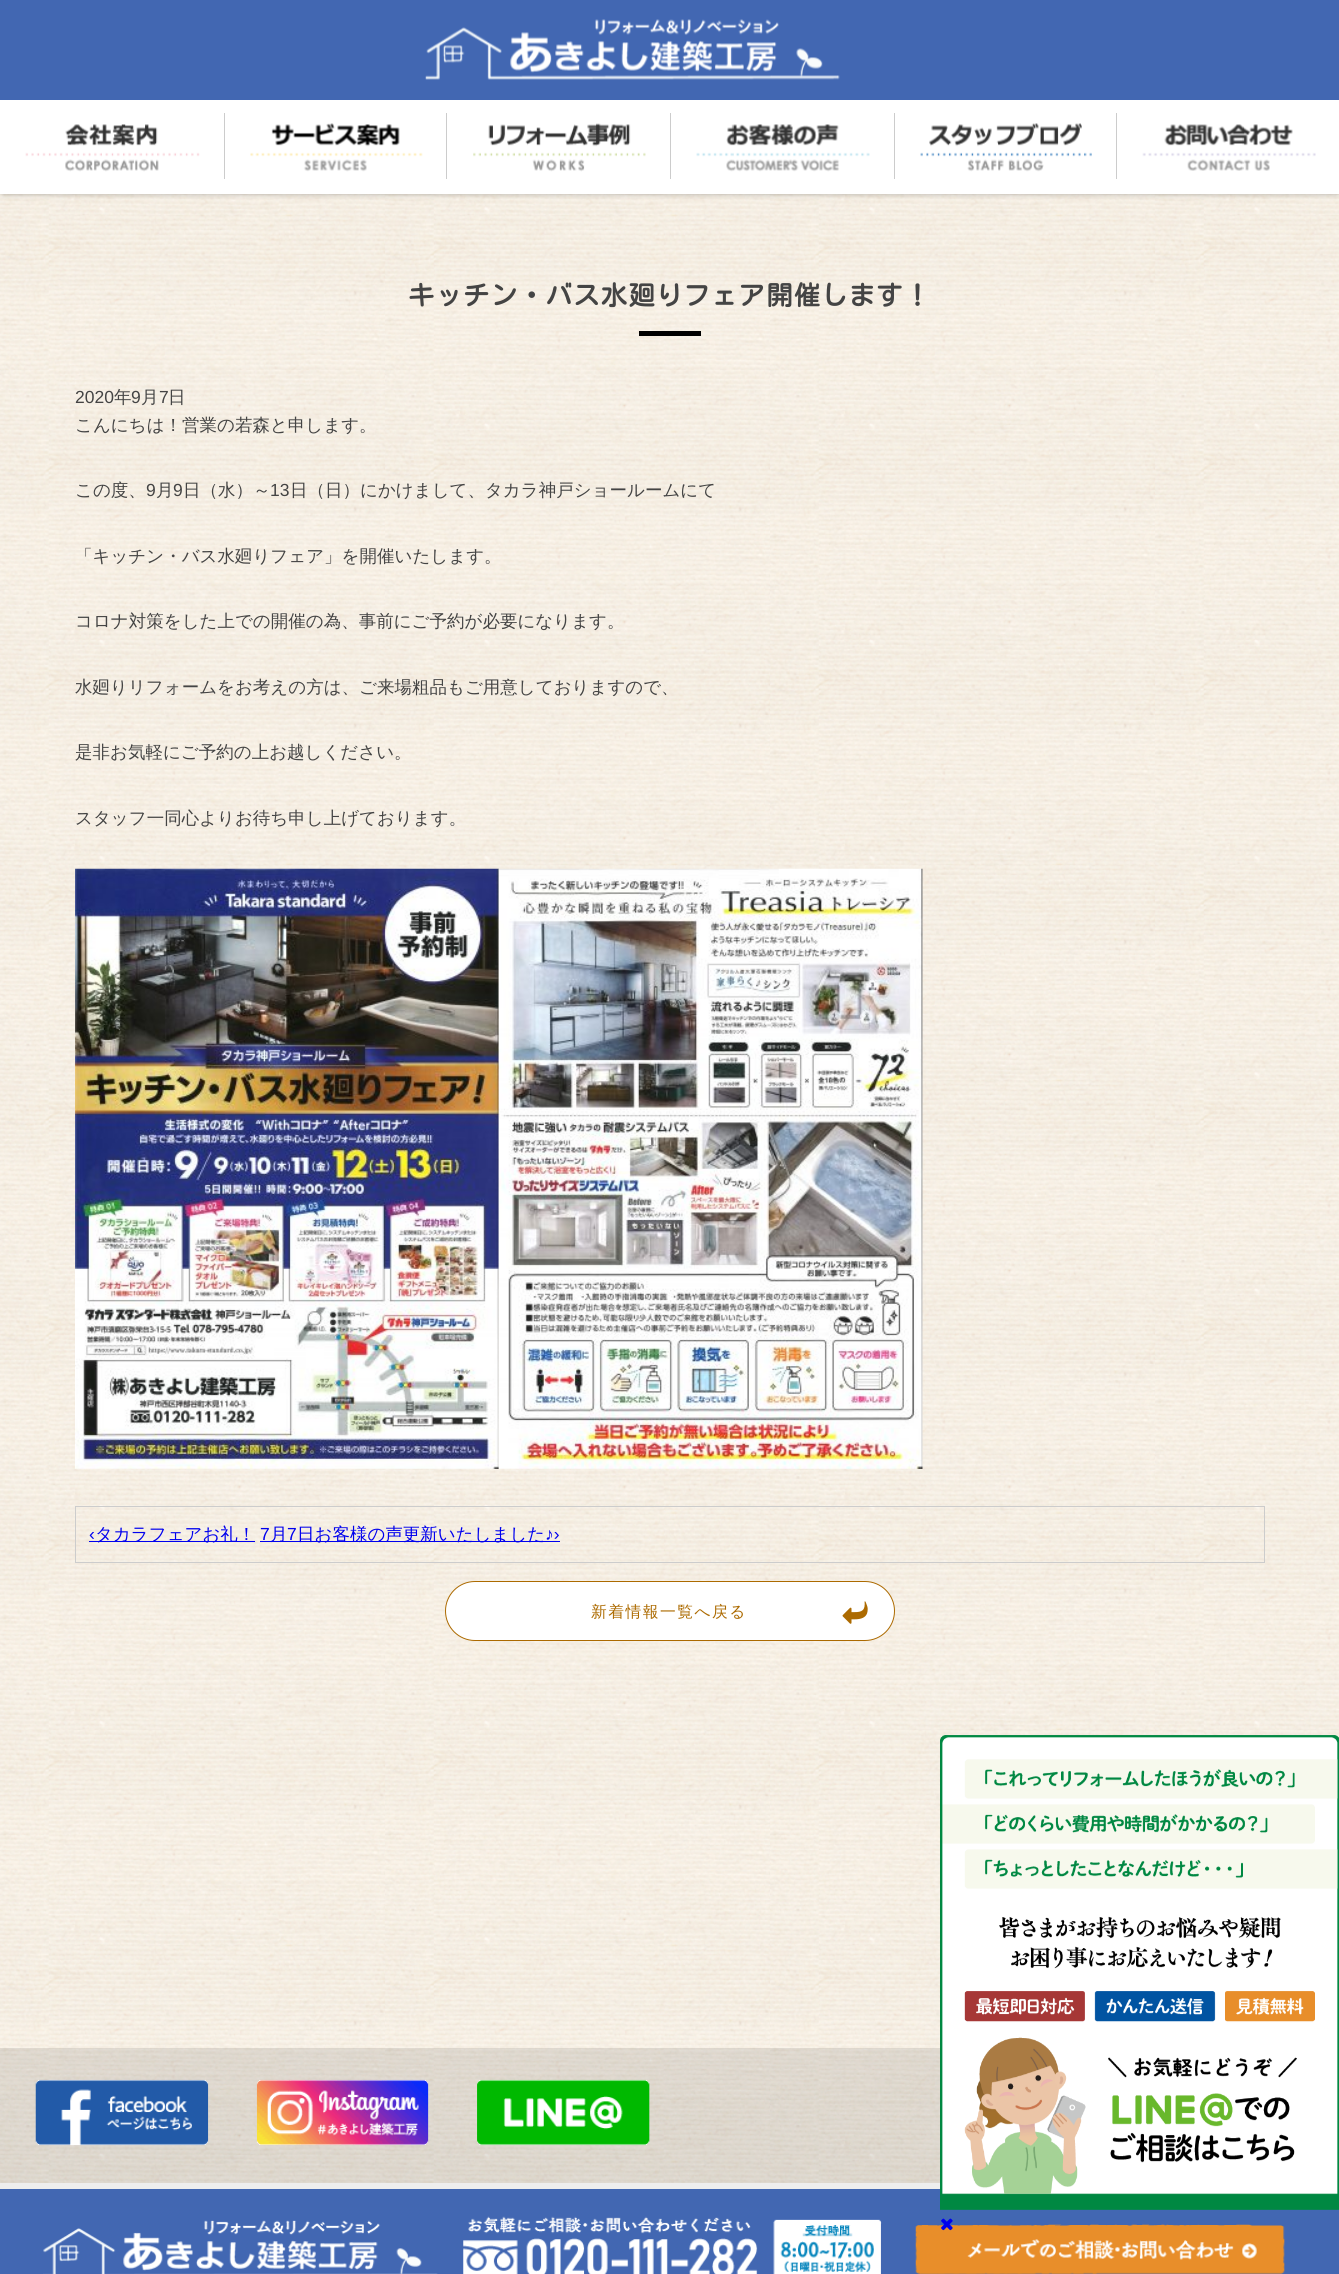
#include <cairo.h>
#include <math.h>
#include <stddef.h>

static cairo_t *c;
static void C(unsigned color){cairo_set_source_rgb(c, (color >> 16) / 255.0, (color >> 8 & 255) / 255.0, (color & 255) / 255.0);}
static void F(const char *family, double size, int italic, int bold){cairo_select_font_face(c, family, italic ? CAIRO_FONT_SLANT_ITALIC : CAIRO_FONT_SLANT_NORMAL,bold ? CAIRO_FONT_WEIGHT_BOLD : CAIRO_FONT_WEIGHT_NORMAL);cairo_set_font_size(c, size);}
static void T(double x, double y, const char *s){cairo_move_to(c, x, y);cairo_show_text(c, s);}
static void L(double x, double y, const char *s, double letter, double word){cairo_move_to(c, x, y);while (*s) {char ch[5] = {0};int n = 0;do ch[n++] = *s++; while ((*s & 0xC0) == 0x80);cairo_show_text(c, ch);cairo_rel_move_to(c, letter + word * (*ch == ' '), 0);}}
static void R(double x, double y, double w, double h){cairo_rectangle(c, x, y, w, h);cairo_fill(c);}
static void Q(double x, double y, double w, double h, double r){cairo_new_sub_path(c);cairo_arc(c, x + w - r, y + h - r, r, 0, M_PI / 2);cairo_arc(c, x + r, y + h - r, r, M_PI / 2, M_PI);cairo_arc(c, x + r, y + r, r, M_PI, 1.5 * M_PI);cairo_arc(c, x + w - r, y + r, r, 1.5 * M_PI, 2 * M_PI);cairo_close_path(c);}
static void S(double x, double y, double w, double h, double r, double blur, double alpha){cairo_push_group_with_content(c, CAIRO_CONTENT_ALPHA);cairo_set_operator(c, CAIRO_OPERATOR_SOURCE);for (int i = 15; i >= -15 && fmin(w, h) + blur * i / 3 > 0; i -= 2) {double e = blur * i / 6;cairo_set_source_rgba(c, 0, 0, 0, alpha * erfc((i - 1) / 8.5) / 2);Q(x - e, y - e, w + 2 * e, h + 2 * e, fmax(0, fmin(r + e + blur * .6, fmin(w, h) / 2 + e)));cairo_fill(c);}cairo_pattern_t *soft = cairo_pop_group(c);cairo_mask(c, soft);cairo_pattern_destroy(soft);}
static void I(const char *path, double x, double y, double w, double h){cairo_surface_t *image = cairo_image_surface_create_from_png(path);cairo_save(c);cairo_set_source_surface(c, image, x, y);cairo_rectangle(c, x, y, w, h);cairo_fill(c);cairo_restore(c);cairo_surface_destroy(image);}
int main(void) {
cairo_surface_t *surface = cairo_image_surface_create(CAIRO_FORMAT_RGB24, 1339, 2274);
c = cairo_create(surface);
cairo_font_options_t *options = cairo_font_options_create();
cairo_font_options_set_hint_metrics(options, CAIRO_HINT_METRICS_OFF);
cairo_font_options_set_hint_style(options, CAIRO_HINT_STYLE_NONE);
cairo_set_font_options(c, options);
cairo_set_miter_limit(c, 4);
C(0xffffff);
cairo_paint(c);
I("8.png",0,194,1339,1989);
C(0x000000);
S(3,5,1335,189,0,3,.3);
C(0x4267b2);
R(0,0,1339,100);
I("1.png",425,19,415,61);
C(0xffffff);
R(0,100,1339,94);
I("2.png",25,124,175,48);
C(0xcccccc);
R(224,113,1,66);
I("3.png",250,123,173,49);
R(446,113,1,66);
I("4.png",473,123,173,49);
R(670,113,1,66);
I("5.png",696,124,174,48);
R(894,113,1,66);
I("6.png",920,123,172,49);
R(1116,113,1,66);
I("7.png",1142,124,174,47);
F("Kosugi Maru",26.25,0,1);
C(0x444444);
L(408,305,"キッチン・バス水廻りフェア開催します！",1.3,0);
C(0x000000);
R(639,331,62,5);
F("Liberation Sans",17.5,0,0);
C(0x444444);
T(75,403,"2020");
F("WenQuanYi Zen Hei Medium",17.5,0,0);
T(114,403,"年");
F("Liberation Sans",17.5,0,0);
T(131,403,"9");
F("WenQuanYi Zen Hei Medium",17.5,0,0);
T(141,403,"月");
F("Liberation Sans",17.5,0,0);
T(159,403,"7");
F("WenQuanYi Zen Hei Medium",17.5,0,0);
T(168,403,"日");
T(75,431,"こんにちは！営業の若森と申します。");
T(75,496,"この度、");
F("Liberation Sans",17.5,0,0);
T(146,496,"9");
F("WenQuanYi Zen Hei Medium",17.5,0,0);
T(156,496,"月");
F("Liberation Sans",17.5,0,0);
T(173,496,"9");
F("WenQuanYi Zen Hei Medium",17.5,0,0);
T(183,496,"日（水）～");
F("Liberation Sans",17.5,0,0);
T(270,496,"13");
F("WenQuanYi Zen Hei Medium",17.5,0,0);
T(290,496,"日（日）にかけまして、タカラ神戸ショールームにて");
T(75,562,"「キッチン・バス水廻りフェア」を開催いたします。");
T(75,627,"コロナ対策をした上での開催の為、事前にご予約が必要になります。");
T(75,693,"水廻りリフォームをお考えの方は、ご来場粗品もご用意しておりますので、");
T(75,758,"是非お気軽にご予約の上お越しください。");
T(75,824,"スタッフ一同心よりお待ち申し上げております。");
I("9.png",75,868,424,601);
I("10.png",498,868,425,601);
cairo_rectangle(c,75.5,1506.5,1189,56);
C(0xcccccc);
cairo_set_line_width(c,1);
cairo_stroke(c);
F("Liberation Sans",17.5,0,0);
C(0x0000ee);
T(89,1540,"‹");
R(89,1541,166,1);
F("WenQuanYi Zen Hei Medium",17.5,0,0);
T(95,1540,"タカラフェアお礼！");
F("Liberation Sans",17.5,0,0);
T(260,1540,"7");
R(260,1541,300,1);
F("WenQuanYi Zen Hei Medium",17.5,0,0);
T(270,1540,"月");
F("Liberation Sans",17.5,0,0);
T(287,1540,"7");
F("WenQuanYi Zen Hei Medium",17.5,0,0);
T(297,1540,"日お客様の声更新いたしました");
F("Liberation Sans",17.5,0,0);
T(545,1540,"♪›");
C(0xffffff);
Q(445.5,1581.5,449,59,29.5);
cairo_fill_preserve(c);
C(0xac6a00);
cairo_stroke(c);
F("WenQuanYi Zen Hei Medium",15.75,0,0);
L(591,1617,"新着情報一覧へ戻る",1.5,0);
I("11.png",842,1601,26,23);
cairo_set_source_rgba(c,0,0,0,0.1);
R(0,2048,940,135);
I("12.png",35,2079,174,67);
I("13.png",256,2079,173,66);
I("14.png",477,2079,173,67);
C(0x4267b2);
R(0,2189,1339,85);
I("15.png",940,1735,399,475);
I("19.png",915,2224,370,50);
I("16.png",941,2218,12,13);
C(0xeeeeee);
R(0,2183,940,6);
I("17.png",43,2220,395,54);
I("18.png",463,2216,419,58);
cairo_surface_write_to_png(surface, "o.png");
cairo_font_options_destroy(options);
cairo_destroy(c);
cairo_surface_destroy(surface);
return 0;
}
